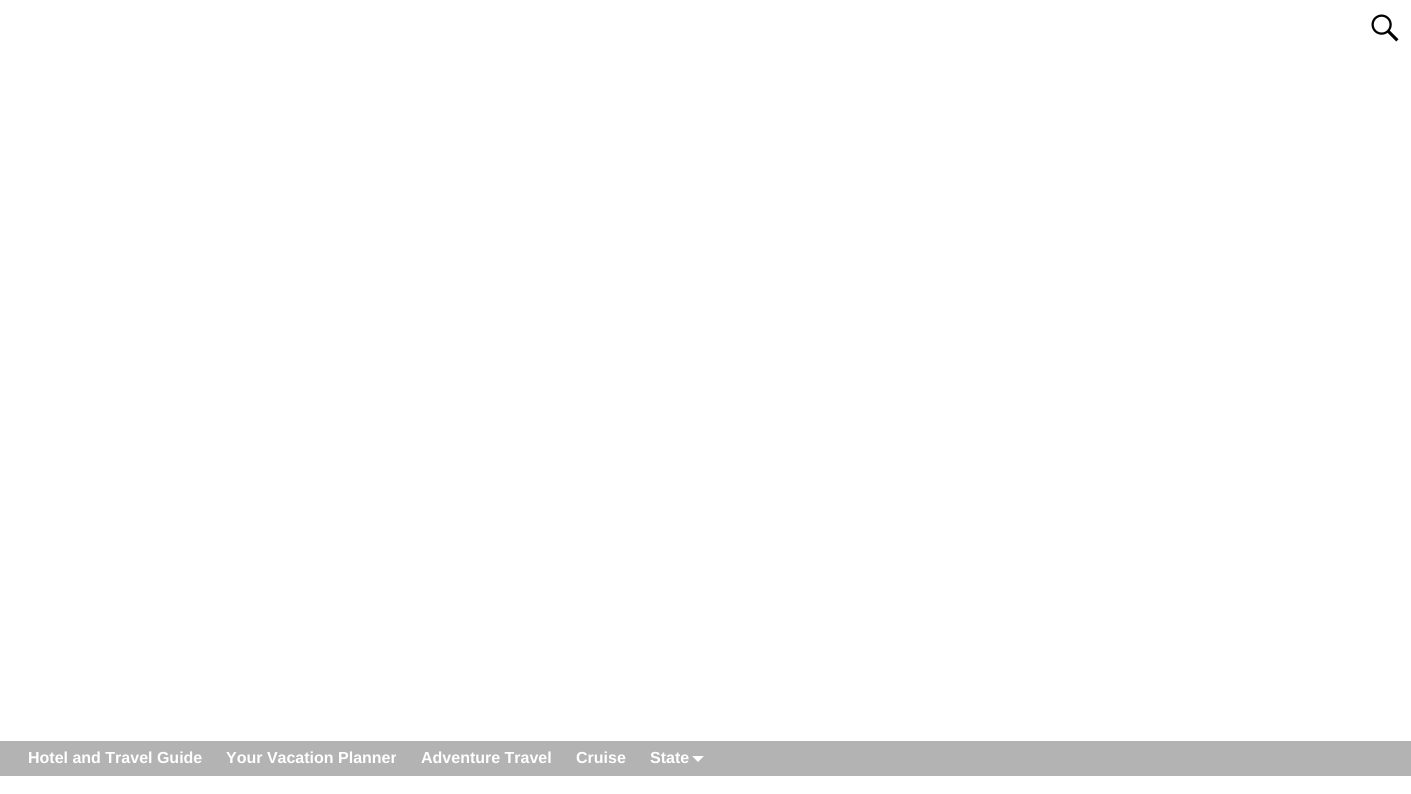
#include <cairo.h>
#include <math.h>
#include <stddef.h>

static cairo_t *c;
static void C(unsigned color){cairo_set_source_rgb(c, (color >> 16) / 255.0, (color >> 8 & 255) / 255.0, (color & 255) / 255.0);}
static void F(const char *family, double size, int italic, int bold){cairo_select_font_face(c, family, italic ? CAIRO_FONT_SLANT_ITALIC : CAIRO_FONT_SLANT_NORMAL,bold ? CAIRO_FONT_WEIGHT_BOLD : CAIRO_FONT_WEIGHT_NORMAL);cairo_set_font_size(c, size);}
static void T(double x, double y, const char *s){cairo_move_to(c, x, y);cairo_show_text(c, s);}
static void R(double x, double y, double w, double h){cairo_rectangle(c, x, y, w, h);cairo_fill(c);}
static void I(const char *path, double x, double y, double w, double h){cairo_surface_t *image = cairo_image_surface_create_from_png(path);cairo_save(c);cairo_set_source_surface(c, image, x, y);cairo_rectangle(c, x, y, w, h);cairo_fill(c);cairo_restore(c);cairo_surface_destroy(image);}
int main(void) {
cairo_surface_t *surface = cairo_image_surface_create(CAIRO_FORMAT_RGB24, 1411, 794);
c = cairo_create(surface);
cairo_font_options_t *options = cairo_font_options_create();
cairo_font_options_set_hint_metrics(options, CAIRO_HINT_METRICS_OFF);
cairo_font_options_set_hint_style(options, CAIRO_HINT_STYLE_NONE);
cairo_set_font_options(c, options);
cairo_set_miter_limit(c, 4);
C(0xffffff);
cairo_paint(c);
I("1.png",1371,14,28,28);
C(0xb3b3b3);
R(0,741,1411,35);
F("Liberation Sans",16,0,1);
C(0xffffff);
T(28,763,"Hotel and Travel Guide");
T(226,763,"Your Vacation Planner");
T(421,763,"Adventure Travel");
T(576,763,"Cruise");
T(650,763,"State");
cairo_new_path(c);
cairo_move_to(c,692,756);
cairo_line_to(c,704,756);
cairo_line_to(c,698,762);
cairo_close_path(c);
cairo_fill(c);
cairo_surface_write_to_png(surface, "o.png");
cairo_font_options_destroy(options);
cairo_destroy(c);
cairo_surface_destroy(surface);
return 0;
}
